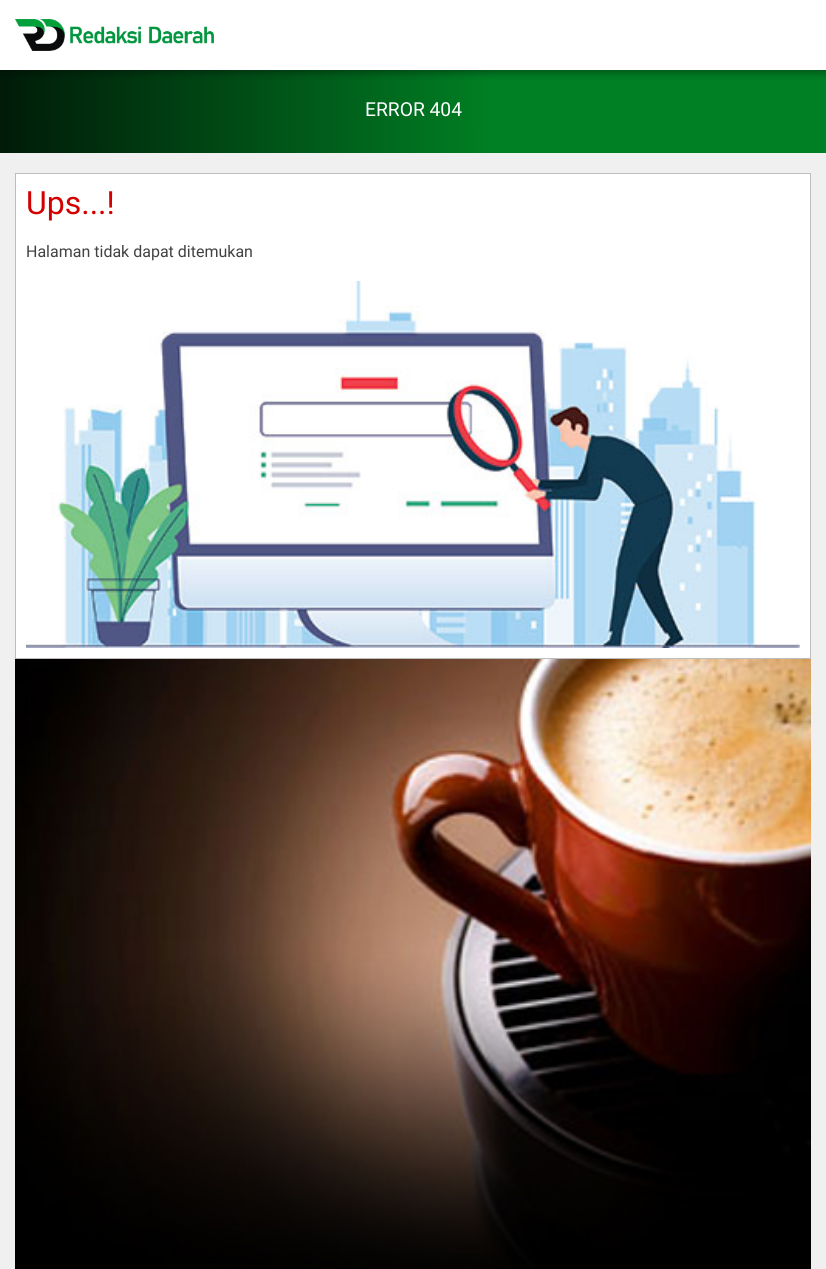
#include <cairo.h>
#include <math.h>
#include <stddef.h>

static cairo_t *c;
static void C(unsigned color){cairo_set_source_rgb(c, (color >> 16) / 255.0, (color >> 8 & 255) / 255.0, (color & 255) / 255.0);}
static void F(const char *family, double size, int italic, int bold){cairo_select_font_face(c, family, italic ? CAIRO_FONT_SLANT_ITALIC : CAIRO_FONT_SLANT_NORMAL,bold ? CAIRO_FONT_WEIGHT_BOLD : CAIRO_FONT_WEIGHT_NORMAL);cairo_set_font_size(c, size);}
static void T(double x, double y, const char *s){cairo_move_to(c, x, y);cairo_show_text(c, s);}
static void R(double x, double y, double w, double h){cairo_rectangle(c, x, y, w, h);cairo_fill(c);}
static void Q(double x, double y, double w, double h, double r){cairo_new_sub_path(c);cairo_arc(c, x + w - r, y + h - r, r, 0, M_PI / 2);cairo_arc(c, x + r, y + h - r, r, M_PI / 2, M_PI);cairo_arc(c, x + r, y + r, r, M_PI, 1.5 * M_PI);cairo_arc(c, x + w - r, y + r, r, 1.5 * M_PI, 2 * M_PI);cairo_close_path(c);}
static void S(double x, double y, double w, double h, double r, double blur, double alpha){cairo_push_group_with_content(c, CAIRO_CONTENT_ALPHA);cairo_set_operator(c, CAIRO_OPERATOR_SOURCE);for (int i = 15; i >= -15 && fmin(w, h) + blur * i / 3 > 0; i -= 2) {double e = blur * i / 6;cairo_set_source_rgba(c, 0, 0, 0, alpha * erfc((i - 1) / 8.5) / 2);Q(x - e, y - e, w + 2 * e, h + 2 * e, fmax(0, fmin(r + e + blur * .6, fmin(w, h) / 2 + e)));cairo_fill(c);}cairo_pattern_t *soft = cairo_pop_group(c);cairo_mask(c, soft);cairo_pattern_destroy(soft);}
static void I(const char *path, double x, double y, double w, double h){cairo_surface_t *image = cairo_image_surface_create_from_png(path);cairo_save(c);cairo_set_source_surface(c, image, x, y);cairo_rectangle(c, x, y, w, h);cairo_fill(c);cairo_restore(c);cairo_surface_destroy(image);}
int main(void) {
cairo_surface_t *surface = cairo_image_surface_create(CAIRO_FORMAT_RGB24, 826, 1269);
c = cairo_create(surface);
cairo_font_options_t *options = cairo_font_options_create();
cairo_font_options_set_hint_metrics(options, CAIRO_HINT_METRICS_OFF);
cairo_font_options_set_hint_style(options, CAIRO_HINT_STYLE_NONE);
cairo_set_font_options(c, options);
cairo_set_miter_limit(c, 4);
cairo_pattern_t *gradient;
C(0xffffff);
cairo_paint(c);
gradient = cairo_pattern_create_linear(0,112,826,111);
cairo_pattern_add_color_stop_rgba(gradient,0,0,0.106,0.031,1);
cairo_pattern_add_color_stop_rgba(gradient,.6,0,0.502,0.141,1);
cairo_pattern_add_color_stop_rgba(gradient,1,0,0.502,0.141,1);
cairo_set_source(c,gradient);
cairo_pattern_destroy(gradient);
R(0,70,826,83);
cairo_save(c);
cairo_rectangle(c,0,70,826,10);
cairo_clip(c);
C(0x000000);
S(0,1,826,70,0,5,.5);
cairo_restore(c);
I("1.png",15,19,199,32);
C(0xf0f0f0);
R(0,153,826,1116);
F("Roboto",19.25,0,0);
C(0xffffff);
T(365,116,"ERROR 404");
cairo_rectangle(c,15.5,173.5,795,485);
cairo_fill_preserve(c);
C(0xbdbdbd);
cairo_set_line_width(c,1);
cairo_stroke(c);
F("Roboto",32,0,0);
C(0xd20000);
T(26,214,"Ups...!");
F("Roboto",16,0,0);
C(0x414141);
T(26,257,"Halaman tidak dapat ditemukan");
I("2.png",26,281,774,367);
I("3.png",15,659,796,610);
cairo_surface_write_to_png(surface, "o.png");
cairo_font_options_destroy(options);
cairo_destroy(c);
cairo_surface_destroy(surface);
return 0;
}
